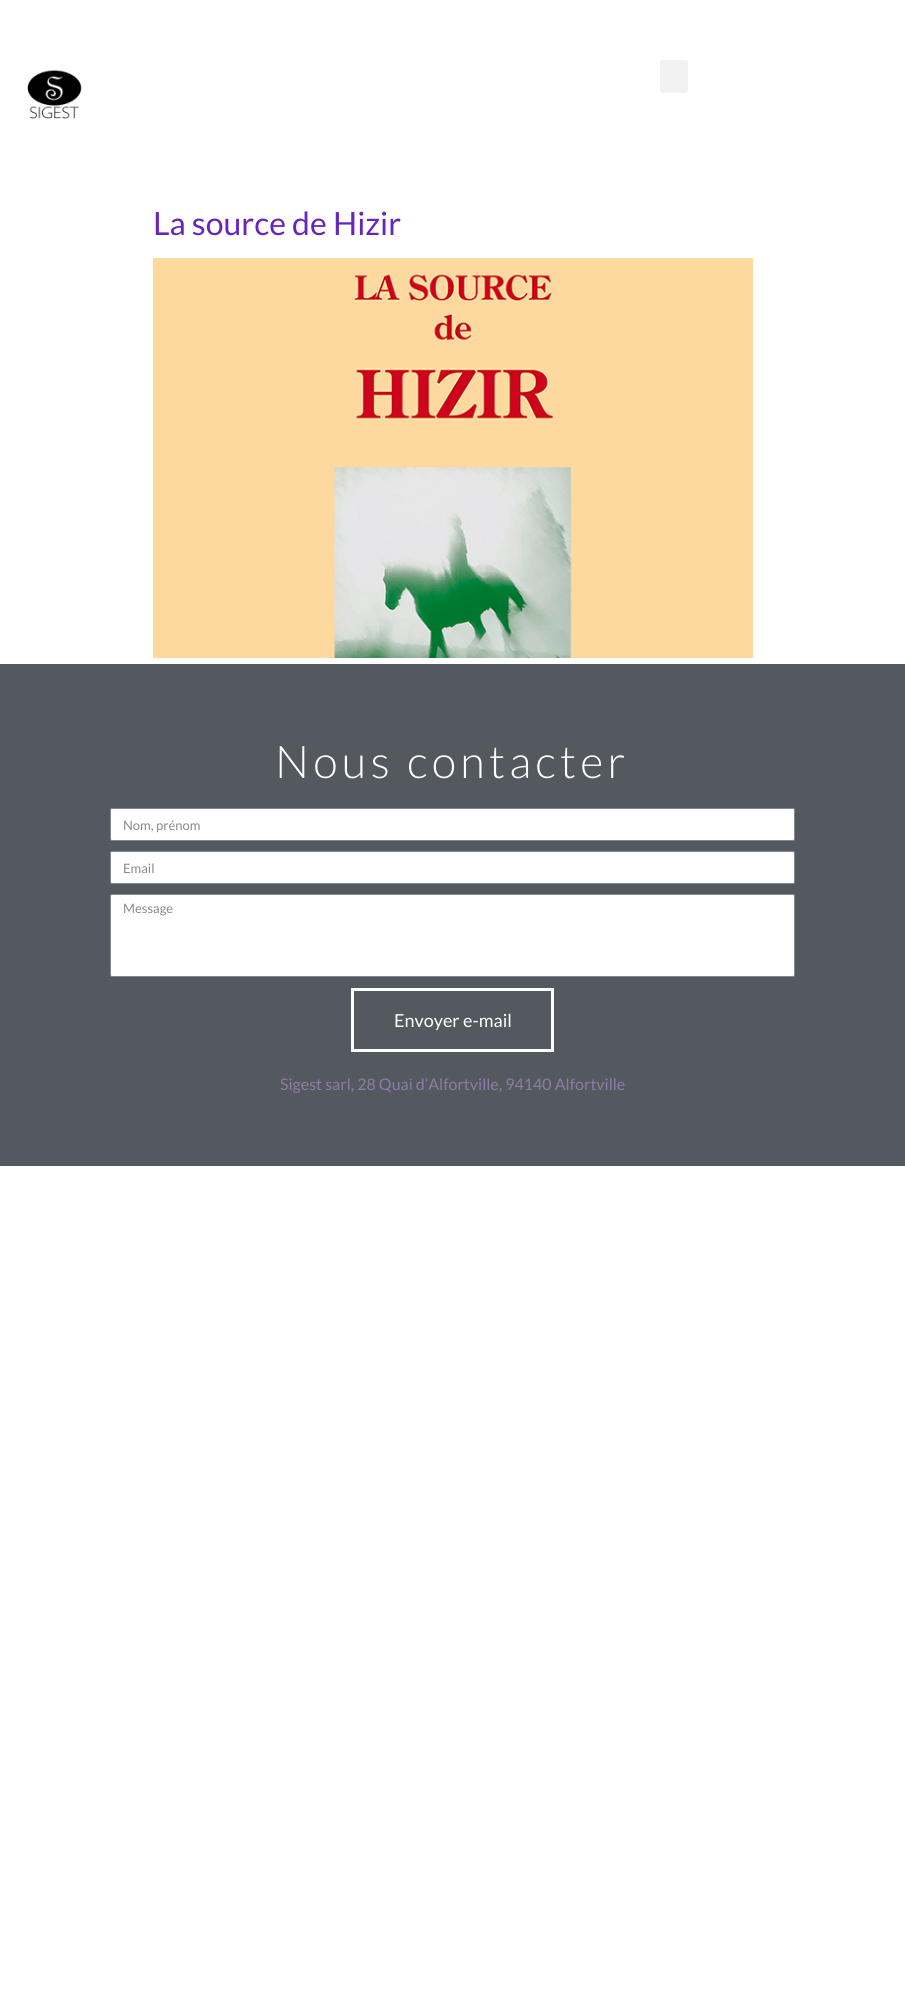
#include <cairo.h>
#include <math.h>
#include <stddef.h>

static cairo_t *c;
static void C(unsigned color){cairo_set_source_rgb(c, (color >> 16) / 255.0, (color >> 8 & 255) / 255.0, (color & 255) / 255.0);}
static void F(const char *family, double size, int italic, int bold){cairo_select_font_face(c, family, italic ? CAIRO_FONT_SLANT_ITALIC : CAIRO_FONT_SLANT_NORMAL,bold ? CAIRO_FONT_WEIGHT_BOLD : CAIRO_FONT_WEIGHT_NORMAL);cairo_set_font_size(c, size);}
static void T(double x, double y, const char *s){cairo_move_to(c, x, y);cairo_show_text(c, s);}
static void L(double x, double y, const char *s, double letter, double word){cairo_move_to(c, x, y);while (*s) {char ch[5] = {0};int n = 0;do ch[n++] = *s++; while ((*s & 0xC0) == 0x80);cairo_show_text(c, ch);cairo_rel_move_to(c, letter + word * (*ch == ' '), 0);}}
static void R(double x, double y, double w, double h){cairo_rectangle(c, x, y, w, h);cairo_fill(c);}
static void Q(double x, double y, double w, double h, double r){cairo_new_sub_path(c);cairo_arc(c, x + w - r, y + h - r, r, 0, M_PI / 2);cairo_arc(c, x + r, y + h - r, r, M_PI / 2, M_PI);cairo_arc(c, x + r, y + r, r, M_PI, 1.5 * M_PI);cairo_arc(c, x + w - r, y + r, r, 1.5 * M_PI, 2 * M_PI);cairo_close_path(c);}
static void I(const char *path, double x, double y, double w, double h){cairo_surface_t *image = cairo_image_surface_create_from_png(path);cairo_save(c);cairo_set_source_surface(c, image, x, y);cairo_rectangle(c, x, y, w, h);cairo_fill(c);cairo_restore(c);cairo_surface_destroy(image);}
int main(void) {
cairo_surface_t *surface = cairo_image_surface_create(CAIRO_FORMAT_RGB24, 905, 1999);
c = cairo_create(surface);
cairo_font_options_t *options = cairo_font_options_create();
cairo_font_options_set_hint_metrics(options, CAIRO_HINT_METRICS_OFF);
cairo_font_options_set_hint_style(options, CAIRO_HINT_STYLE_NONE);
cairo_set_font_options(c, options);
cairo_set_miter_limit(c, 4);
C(0xffffff);
cairo_paint(c);
I("1.png",27,70,55,49);
C(0xf2f2f2);
Q(660,60,28,33,3);
cairo_fill(c);
F("Lato",32,0,0);
C(0x6725bc);
T(153,235,"La source de Hizir");
I("2.png",153,258,600,400);
C(0x54595f);
R(0,664,905,502);
F("Lato Light",45,0,0);
C(0xffffff);
L(275,778,"Nous contacter",4.25,0);
Q(110.5,808.5,684,32,1.5);
cairo_fill_preserve(c);
C(0x818a91);
cairo_set_line_width(c,1);
cairo_stroke(c);
F("Lato",13,0,0);
C(0x87898a);
T(123,830,"Nom, prénom");
C(0xffffff);
Q(110.5,851.5,684,32,1.5);
cairo_fill_preserve(c);
C(0x818a91);
cairo_stroke(c);
C(0x87898a);
T(123,873,"Email");
C(0xffffff);
Q(110.5,894.5,684,82,1.5);
cairo_fill_preserve(c);
C(0x818a91);
cairo_stroke(c);
C(0x87898a);
T(123,913,"Message");
cairo_rectangle(c,352.5,989.5,200,61);
C(0xffffff);
cairo_set_line_width(c,3);
cairo_stroke(c);
F("Lato",18,0,0);
T(394,1027,"Envoyer e-mail");
F("Lato",16,0,0);
C(0x8e7aa8);
T(280,1090,"Sigest sarl, 28 Quai d’Alfortville, 94140 Alfortville");
cairo_surface_write_to_png(surface, "o.png");
cairo_font_options_destroy(options);
cairo_destroy(c);
cairo_surface_destroy(surface);
return 0;
}
